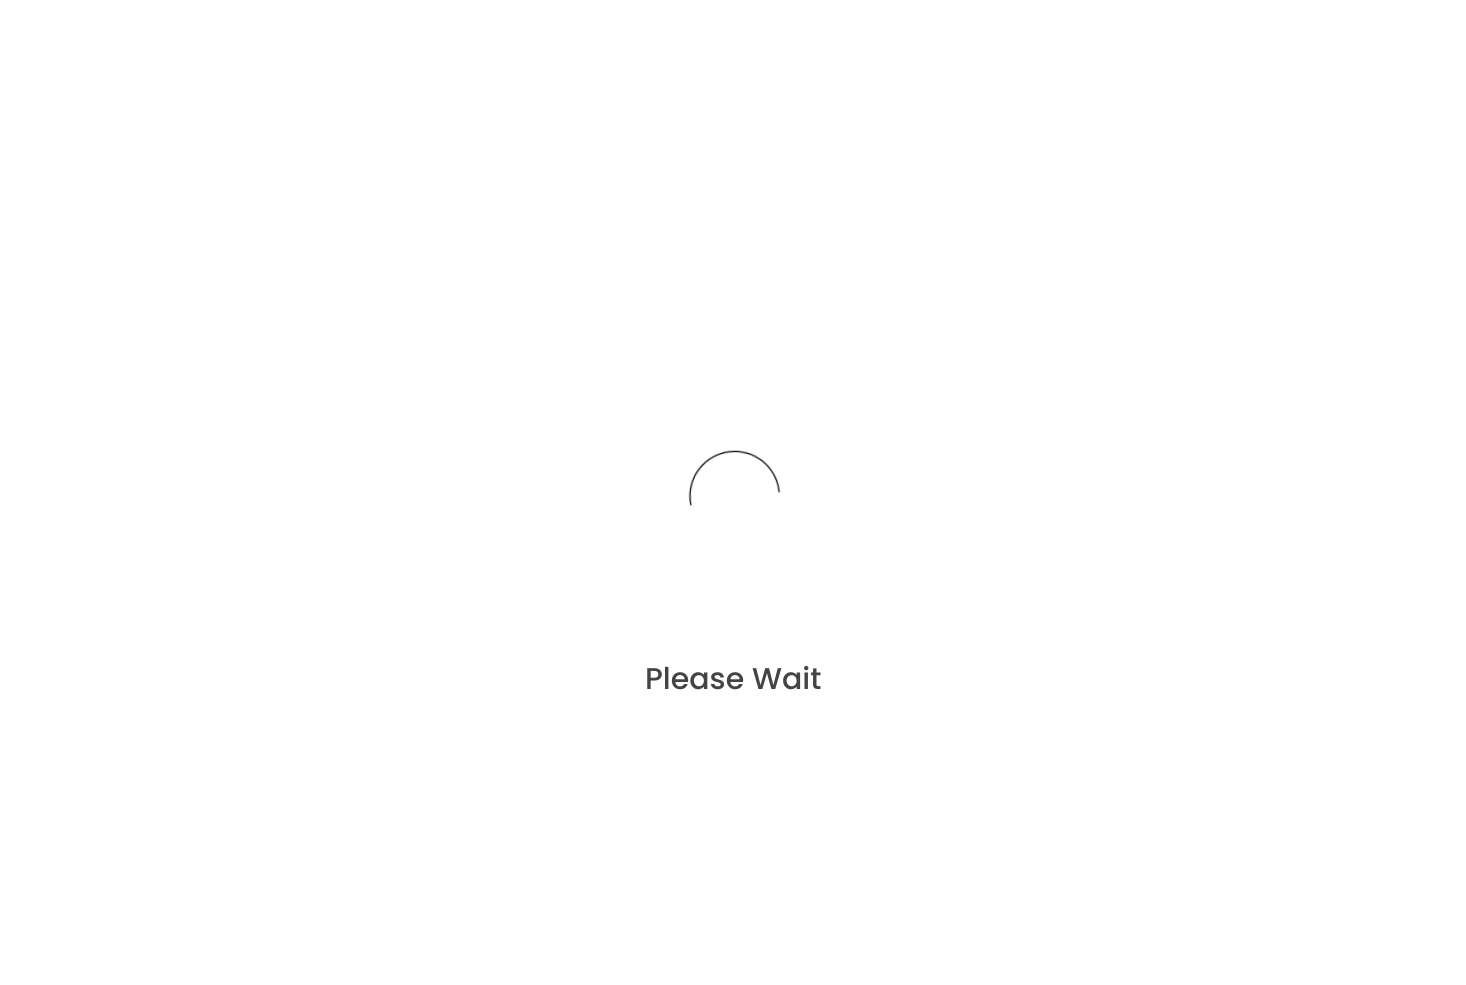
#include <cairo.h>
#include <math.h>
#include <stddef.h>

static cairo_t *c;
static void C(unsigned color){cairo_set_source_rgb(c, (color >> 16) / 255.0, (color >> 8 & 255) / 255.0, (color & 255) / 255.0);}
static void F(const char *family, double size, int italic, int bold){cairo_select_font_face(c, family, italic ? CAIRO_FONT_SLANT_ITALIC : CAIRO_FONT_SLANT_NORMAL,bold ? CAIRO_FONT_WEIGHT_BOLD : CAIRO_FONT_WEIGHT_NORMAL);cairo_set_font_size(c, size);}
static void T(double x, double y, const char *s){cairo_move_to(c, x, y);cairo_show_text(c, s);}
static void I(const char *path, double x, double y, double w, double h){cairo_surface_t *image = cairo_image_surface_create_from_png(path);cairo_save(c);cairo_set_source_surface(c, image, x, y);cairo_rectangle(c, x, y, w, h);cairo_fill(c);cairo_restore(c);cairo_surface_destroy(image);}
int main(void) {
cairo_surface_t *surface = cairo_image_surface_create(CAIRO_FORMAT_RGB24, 1466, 985);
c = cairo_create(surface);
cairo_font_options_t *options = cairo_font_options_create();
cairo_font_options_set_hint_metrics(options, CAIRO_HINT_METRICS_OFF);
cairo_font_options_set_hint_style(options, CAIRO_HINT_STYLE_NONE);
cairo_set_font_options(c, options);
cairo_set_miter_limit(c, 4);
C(0xffffff);
cairo_paint(c);
I("1.png",688,450,93,56);
F("Poppins Medium",30,0,0);
C(0x444444);
T(645,689,"Please Wait");
cairo_surface_write_to_png(surface, "o.png");
cairo_font_options_destroy(options);
cairo_destroy(c);
cairo_surface_destroy(surface);
return 0;
}
